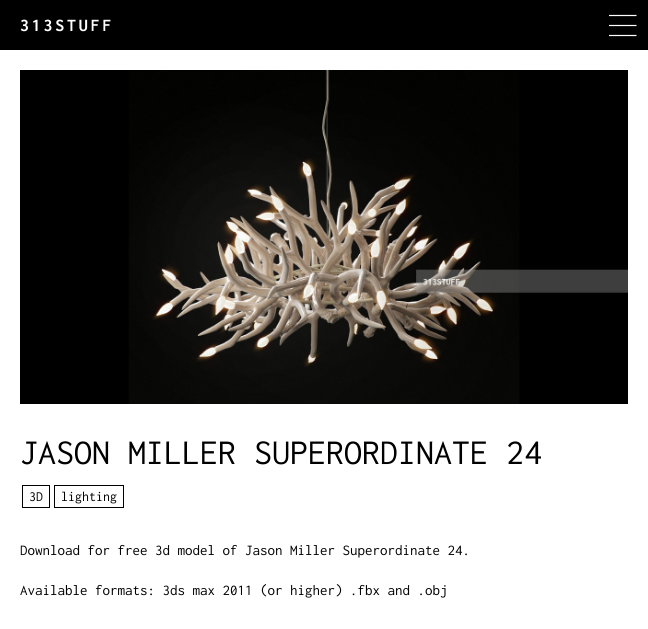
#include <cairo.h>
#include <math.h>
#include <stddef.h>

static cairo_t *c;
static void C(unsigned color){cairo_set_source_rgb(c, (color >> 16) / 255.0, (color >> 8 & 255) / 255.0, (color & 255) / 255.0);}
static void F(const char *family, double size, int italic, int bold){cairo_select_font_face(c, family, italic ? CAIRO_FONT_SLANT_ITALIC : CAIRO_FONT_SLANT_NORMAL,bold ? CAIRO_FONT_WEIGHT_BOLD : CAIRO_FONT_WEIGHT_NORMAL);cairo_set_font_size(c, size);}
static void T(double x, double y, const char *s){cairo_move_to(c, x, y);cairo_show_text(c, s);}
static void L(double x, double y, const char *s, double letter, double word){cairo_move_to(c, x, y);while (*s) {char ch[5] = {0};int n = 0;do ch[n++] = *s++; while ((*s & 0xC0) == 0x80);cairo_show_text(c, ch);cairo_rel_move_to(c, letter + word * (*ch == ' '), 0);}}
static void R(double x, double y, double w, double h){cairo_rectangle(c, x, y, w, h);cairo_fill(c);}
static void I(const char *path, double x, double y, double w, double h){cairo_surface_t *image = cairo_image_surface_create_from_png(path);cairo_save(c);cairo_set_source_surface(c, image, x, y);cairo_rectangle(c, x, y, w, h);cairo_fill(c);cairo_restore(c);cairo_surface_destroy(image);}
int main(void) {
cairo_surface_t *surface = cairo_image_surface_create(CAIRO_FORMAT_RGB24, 648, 629);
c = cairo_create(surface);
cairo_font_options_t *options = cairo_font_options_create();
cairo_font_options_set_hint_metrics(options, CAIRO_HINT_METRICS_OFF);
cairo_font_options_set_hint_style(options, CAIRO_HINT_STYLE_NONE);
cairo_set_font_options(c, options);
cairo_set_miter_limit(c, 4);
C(0x000000);
cairo_paint(c);
F("Inconsolata",18,0,1);
C(0xffffff);
L(20,31,"313STUFF",2.75,0);
cairo_new_path(c);
cairo_move_to(c,636.5,35.5);
cairo_line_to(c,609,35.5);
cairo_move_to(c,636.5,25.5);
cairo_line_to(c,609,25.5);
cairo_move_to(c,636.5,15.5);
cairo_line_to(c,609,15.5);
cairo_set_line_width(c,1.2);
cairo_stroke(c);
R(0,50,648,579);
I("1.png",20,70,608,334);
F("Inconsolata",36,0,0);
C(0x000000);
T(20,464,"JASON MILLER SUPERORDINATE 24");
cairo_rectangle(c,22.5,485.5,27,22);
cairo_set_line_width(c,1);
cairo_stroke(c);
F("Inconsolata",14,0,0);
T(29,501,"3D");
cairo_rectangle(c,54.5,485.5,69,22);
cairo_stroke(c);
T(61,501,"lighting");
F("Inconsolata",15,0,0);
T(20,555,"Download for free 3d model of Jason Miller Superordinate 24.");
T(20,595,"Available formats: 3ds max 2011 (or higher) .fbx and .obj");
cairo_surface_write_to_png(surface, "o.png");
cairo_font_options_destroy(options);
cairo_destroy(c);
cairo_surface_destroy(surface);
return 0;
}
